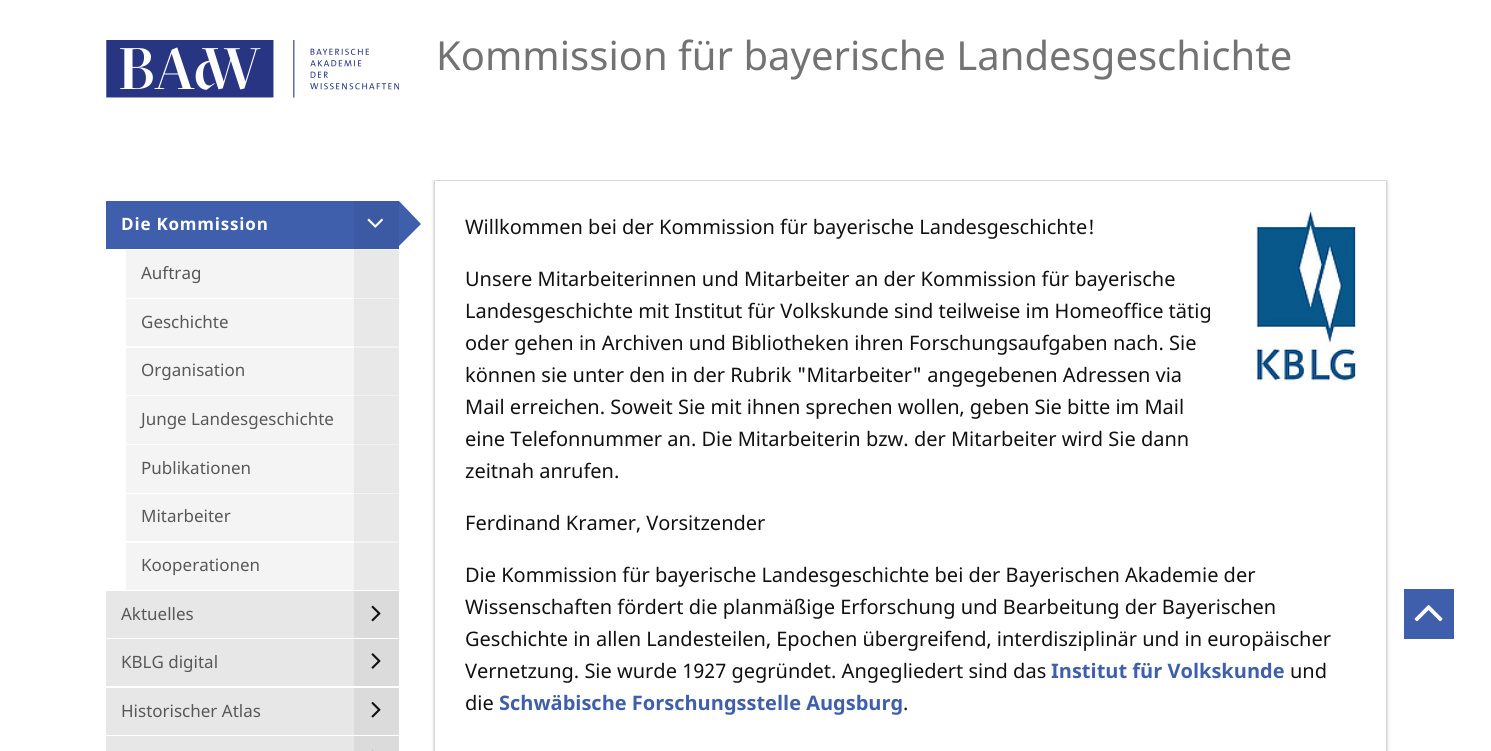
#include <cairo.h>
#include <math.h>
#include <stddef.h>

static cairo_t *c;
static void C(unsigned color){cairo_set_source_rgb(c, (color >> 16) / 255.0, (color >> 8 & 255) / 255.0, (color & 255) / 255.0);}
static void F(const char *family, double size, int italic, int bold){cairo_select_font_face(c, family, italic ? CAIRO_FONT_SLANT_ITALIC : CAIRO_FONT_SLANT_NORMAL,bold ? CAIRO_FONT_WEIGHT_BOLD : CAIRO_FONT_WEIGHT_NORMAL);cairo_set_font_size(c, size);}
static void T(double x, double y, const char *s){cairo_move_to(c, x, y);cairo_show_text(c, s);}
static void L(double x, double y, const char *s, double letter, double word){cairo_move_to(c, x, y);while (*s) {char ch[5] = {0};int n = 0;do ch[n++] = *s++; while ((*s & 0xC0) == 0x80);cairo_show_text(c, ch);cairo_rel_move_to(c, letter + word * (*ch == ' '), 0);}}
static void R(double x, double y, double w, double h){cairo_rectangle(c, x, y, w, h);cairo_fill(c);}
static void Q(double x, double y, double w, double h, double r){cairo_new_sub_path(c);cairo_arc(c, x + w - r, y + h - r, r, 0, M_PI / 2);cairo_arc(c, x + r, y + h - r, r, M_PI / 2, M_PI);cairo_arc(c, x + r, y + r, r, M_PI, 1.5 * M_PI);cairo_arc(c, x + w - r, y + r, r, 1.5 * M_PI, 2 * M_PI);cairo_close_path(c);}
static void S(double x, double y, double w, double h, double r, double blur, double alpha){cairo_push_group_with_content(c, CAIRO_CONTENT_ALPHA);cairo_set_operator(c, CAIRO_OPERATOR_SOURCE);for (int i = 15; i >= -15 && fmin(w, h) + blur * i / 3 > 0; i -= 2) {double e = blur * i / 6;cairo_set_source_rgba(c, 0, 0, 0, alpha * erfc((i - 1) / 8.5) / 2);Q(x - e, y - e, w + 2 * e, h + 2 * e, fmax(0, fmin(r + e + blur * .6, fmin(w, h) / 2 + e)));cairo_fill(c);}cairo_pattern_t *soft = cairo_pop_group(c);cairo_mask(c, soft);cairo_pattern_destroy(soft);}
static void I(const char *path, double x, double y, double w, double h){cairo_surface_t *image = cairo_image_surface_create_from_png(path);cairo_save(c);cairo_set_source_surface(c, image, x, y);cairo_rectangle(c, x, y, w, h);cairo_fill(c);cairo_restore(c);cairo_surface_destroy(image);}
int main(void) {
cairo_surface_t *surface = cairo_image_surface_create(CAIRO_FORMAT_RGB24, 1491, 751);
c = cairo_create(surface);
cairo_font_options_t *options = cairo_font_options_create();
cairo_font_options_set_hint_metrics(options, CAIRO_HINT_METRICS_OFF);
cairo_font_options_set_hint_style(options, CAIRO_HINT_STYLE_NONE);
cairo_set_font_options(c, options);
cairo_set_miter_limit(c, 4);
C(0xffffff);
cairo_paint(c);
C(0xf2f2f2);
R(354,249,45,294);
C(0x999999);
S(435,181,951,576,0,2,1);
C(0xffffff);
R(433,177,955,3);
I("1.png",106,40,293,58);
F("Noto Sans",40,0,0);
C(0x737373);
T(436,70,"Kommission für bayerische Landesgeschichte");
C(0x3f5fac);
R(106,201,248,48);
C(0x3c5aa3);
R(354,201,45,48);
F("Noto Sans",17,0,1);
C(0xffffff);
L(121,230,"Die Kommission",.8,0);
C(0x3f5fac);
cairo_new_path(c);
cairo_move_to(c,399,246);
cairo_line_to(c,399,201);
cairo_line_to(c,421,224);
cairo_close_path(c);
cairo_fill(c);
I("2.png",367,218,16,10);
C(0xf4f4f4);
R(126,250,228,48);
C(0xe8e8e8);
R(354,250,45,48);
F("Noto Sans",17,0,0);
C(0x585858);
T(141,279,"Auftrag");
C(0xf4f4f4);
R(126,299,228,47);
C(0xe8e8e8);
R(354,299,45,47);
C(0x585858);
T(141,328,"Geschichte");
C(0xf4f4f4);
R(126,348,228,47);
C(0xe8e8e8);
R(354,348,45,47);
C(0x585858);
T(141,376,"Organisation");
C(0xf4f4f4);
R(126,396,228,48);
C(0xe8e8e8);
R(354,396,45,48);
C(0x585858);
T(141,425,"Junge Landesgeschichte");
C(0xf4f4f4);
R(126,445,228,48);
C(0xe8e8e8);
R(354,445,45,48);
C(0x585858);
T(141,474,"Publikationen");
C(0xf4f4f4);
R(126,494,228,47);
C(0xe8e8e8);
R(354,494,45,47);
C(0x585858);
T(141,522,"Mitarbeiter");
C(0xf4f4f4);
R(126,543,228,47);
C(0xe8e8e8);
R(354,543,45,47);
C(0x585858);
T(141,571,"Kooperationen");
C(0xe7e7e7);
R(106,591,248,47);
C(0x585858);
T(121,620,"Aktuelles");
C(0xdbdbdb);
R(354,591,45,47);
I("3.png",371,605,10,17);
C(0xe7e7e7);
R(106,639,248,47);
C(0x585858);
T(121,668,"KBLG digital");
C(0xdbdbdb);
R(354,639,45,47);
I("4.png",371,653,10,16);
C(0xe7e7e7);
R(106,688,248,47);
C(0x585858);
T(121,717,"Historischer Atlas");
C(0xdbdbdb);
R(354,688,45,47);
I("5.png",371,702,10,16);
C(0xe7e7e7);
R(106,736,248,15);
C(0xdbdbdb);
R(354,736,45,15);
I("6.png",372,750,2,1);
C(0xffffff);
R(435,181,951,570);
F("Noto Sans",20,0,0);
C(0x111111);
T(465,234,"Willkommen bei der Kommission für bayerische Landesgeschichte!");
T(465,286,"Unsere Mitarbeiterinnen und Mitarbeiter an der Kommission für bayerische");
T(465,318,"Landesgeschichte mit Institut für Volkskunde sind teilweise im Homeoffice tätig");
T(465,350,"oder gehen in Archiven und Bibliotheken ihren Forschungsaufgaben nach. Sie");
T(465,382,"können sie unter den in der Rubrik \"Mitarbeiter\" angegebenen Adressen via");
T(465,414,"Mail erreichen. Soweit Sie mit ihnen sprechen wollen, geben Sie bitte im Mail");
T(465,446,"eine Telefonnummer an. Die Mitarbeiterin bzw. der Mitarbeiter wird Sie dann");
T(465,478,"zeitnah anrufen.");
T(465,530,"Ferdinand Kramer, Vorsitzender");
I("7.png",1256,211,100,170);
T(465,582,"Die Kommission für bayerische Landesgeschichte bei der Bayerischen Akademie der");
T(465,614,"Wissenschaften fördert die planmäßige Erforschung und Bearbeitung der Bayerischen");
T(465,646,"Geschichte in allen Landesteilen, Epochen übergreifend, interdisziplinär und in europäischer");
T(465,678,"Vernetzung. Sie wurde 1927 gegründet. Angegliedert sind das");
F("Noto Sans",20,0,1);
C(0x3f5fac);
T(1051,678,"Institut für Volkskunde");
F("Noto Sans",20,0,0);
C(0x111111);
T(1290,678,"und");
T(465,710,"die");
F("Noto Sans",20,0,1);
C(0x3f5fac);
T(499,710,"Schwäbische Forschungsstelle Augsburg");
F("Noto Sans",20,0,0);
C(0x111111);
T(903,710,".");
C(0x3f5fac);
R(1404,589,50,50);
I("8.png",1414,605,29,17);
cairo_surface_write_to_png(surface, "o.png");
cairo_font_options_destroy(options);
cairo_destroy(c);
cairo_surface_destroy(surface);
return 0;
}
